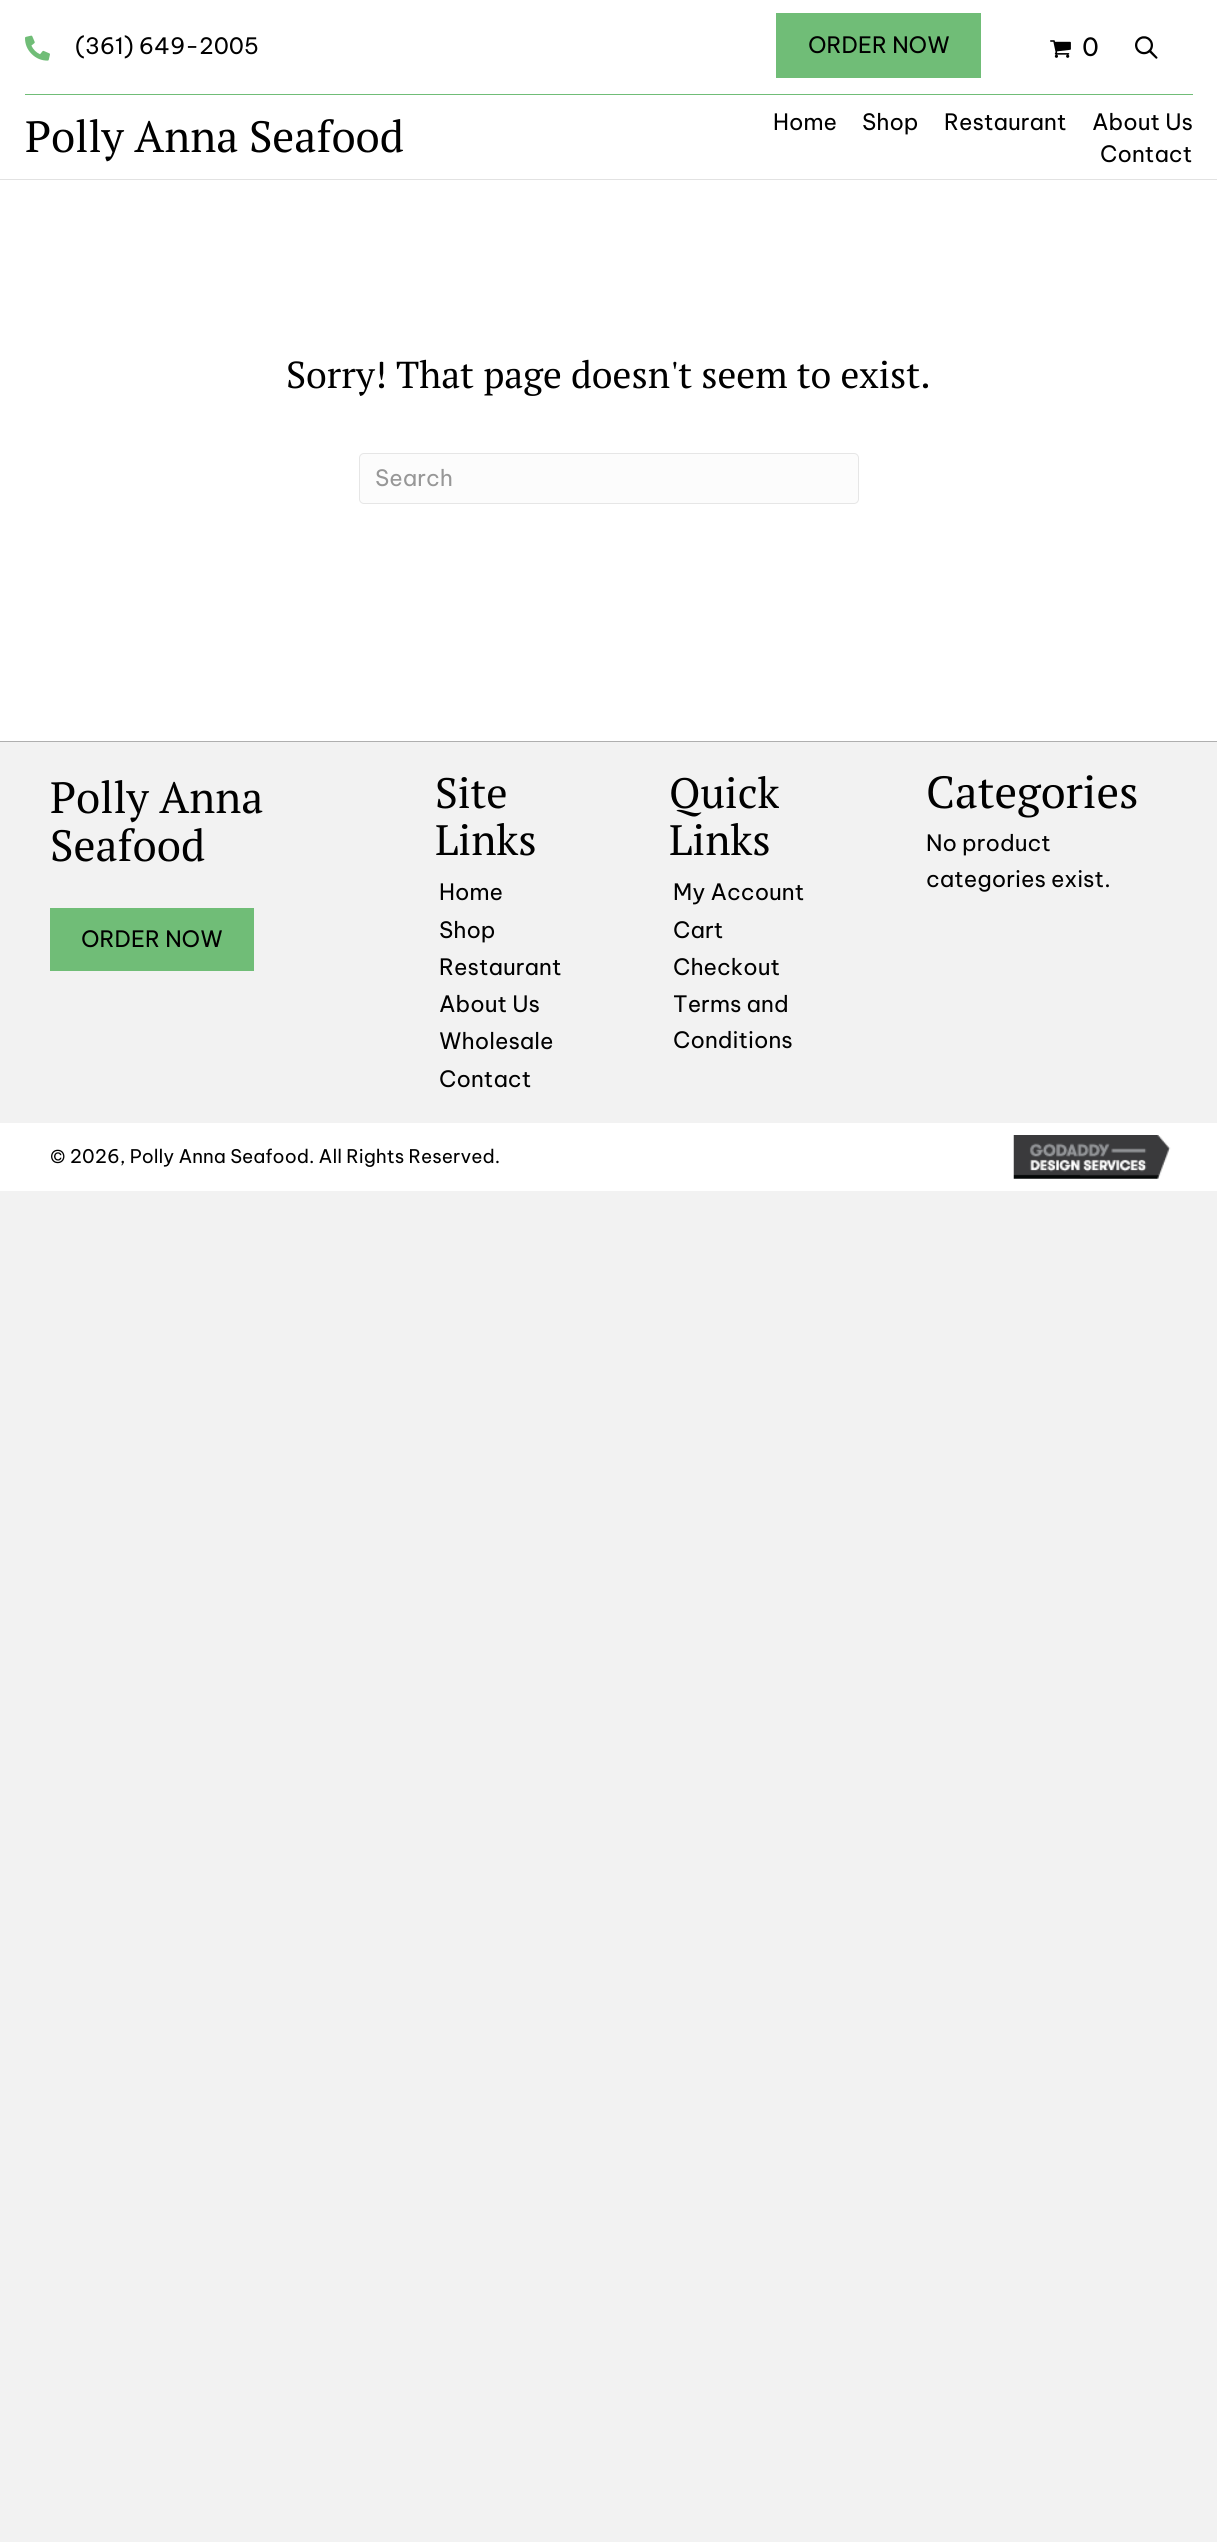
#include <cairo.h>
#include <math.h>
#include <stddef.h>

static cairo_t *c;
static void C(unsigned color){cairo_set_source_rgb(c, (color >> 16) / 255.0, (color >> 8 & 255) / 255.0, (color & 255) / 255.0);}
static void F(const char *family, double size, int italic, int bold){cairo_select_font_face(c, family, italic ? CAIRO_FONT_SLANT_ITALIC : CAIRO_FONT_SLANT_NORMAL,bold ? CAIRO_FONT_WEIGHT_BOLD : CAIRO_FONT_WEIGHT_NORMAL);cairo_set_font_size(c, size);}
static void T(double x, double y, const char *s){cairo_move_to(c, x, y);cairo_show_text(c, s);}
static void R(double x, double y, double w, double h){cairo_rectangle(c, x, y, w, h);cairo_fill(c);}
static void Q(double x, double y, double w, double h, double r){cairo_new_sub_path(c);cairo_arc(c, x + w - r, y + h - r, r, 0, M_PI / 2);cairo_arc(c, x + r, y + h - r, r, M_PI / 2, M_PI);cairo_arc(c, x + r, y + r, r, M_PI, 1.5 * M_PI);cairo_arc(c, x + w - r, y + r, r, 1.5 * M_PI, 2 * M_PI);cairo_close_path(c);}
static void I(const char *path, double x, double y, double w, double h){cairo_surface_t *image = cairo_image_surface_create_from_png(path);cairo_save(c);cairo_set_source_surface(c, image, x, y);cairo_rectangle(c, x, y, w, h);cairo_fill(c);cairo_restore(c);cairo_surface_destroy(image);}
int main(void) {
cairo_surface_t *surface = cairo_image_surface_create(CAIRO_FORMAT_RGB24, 1217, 2542);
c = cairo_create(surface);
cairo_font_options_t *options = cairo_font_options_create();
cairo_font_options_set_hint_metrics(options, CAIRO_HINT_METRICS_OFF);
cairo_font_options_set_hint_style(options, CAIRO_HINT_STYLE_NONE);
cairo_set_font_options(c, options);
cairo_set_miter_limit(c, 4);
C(0xf2f2f2);
cairo_paint(c);
C(0xffffff);
R(0,0,1217,179);
C(0xe2e2e2);
R(0,179,1217,1);
C(0x70bd77);
R(25,94,1168,1);
I("1.png",25,35,25,26);
F("Be Vietnam Pro",22.5,0,0);
C(0x000000);
T(75,54,"(361) 649-2005");
C(0x70bd77);
R(776,13,205,65);
C(0x000000);
T(808,53,"ORDER NOW");
I("2.png",1050,40,21,18);
F("Be Vietnam Pro",25,0,0);
T(1082,56,"0");
I("3.png",1135,36,23,23);
F("PT Serif",43.75,0,0);
T(25,152,"Polly Anna Seafood");
F("Be Vietnam Pro",22.5,0,0);
T(773,130,"Home");
T(862,130,"Shop");
T(944,130,"Restaurant");
T(1092,130,"About Us");
T(1100,162,"Contact");
C(0xffffff);
R(0,180,1217,561);
F("PT Serif",37.5,0,0);
C(0x000000);
T(286,388,"Sorry! That page doesn't seem to exist.");
C(0xfcfcfc);
Q(359.5,453.5,499,50,4.5);
cairo_fill_preserve(c);
C(0xe6e6e6);
cairo_set_line_width(c,1);
cairo_stroke(c);
F("Be Vietnam Pro",22.5,0,0);
C(0x979797);
T(375,486,"Search");
C(0xafafaf);
R(0,741,1217,1);
F("PT Serif",43.75,0,0);
C(0x000000);
T(50,813,"Polly Anna");
T(50,861,"Seafood");
C(0x70bd77);
R(50,908,204,63);
F("Be Vietnam Pro",22.5,0,0);
C(0x000000);
T(81,947,"ORDER NOW");
F("PT Serif",42.5,0,0);
T(435,808,"Site");
T(435,855,"Links");
F("Be Vietnam Pro",22.5,0,0);
T(439,900,"Home");
T(439,938,"Shop");
T(439,975,"Restaurant");
T(439,1012,"About Us");
T(439,1049,"Wholesale");
T(439,1087,"Contact");
F("PT Serif",42.5,0,0);
T(669,808,"Quick");
T(669,855,"Links");
F("Be Vietnam Pro",22.5,0,0);
T(673,900,"My Account");
T(673,938,"Cart");
T(673,975,"Checkout");
T(673,1012,"Terms and");
T(673,1048,"Conditions");
F("PT Serif",45,0,0);
T(926,808,"Categories");
F("Be Vietnam Pro",22.5,0,0);
T(926,851,"No product");
T(926,887,"categories exist.");
C(0xffffff);
R(0,1123,1217,68);
F("Be Vietnam Pro",18.75,0,0);
C(0x000000);
T(50,1163,"© 2026, Polly Anna Seafood. All Rights Reserved.");
I("4.png",1013,1135,158,44);
cairo_surface_write_to_png(surface, "o.png");
cairo_font_options_destroy(options);
cairo_destroy(c);
cairo_surface_destroy(surface);
return 0;
}
